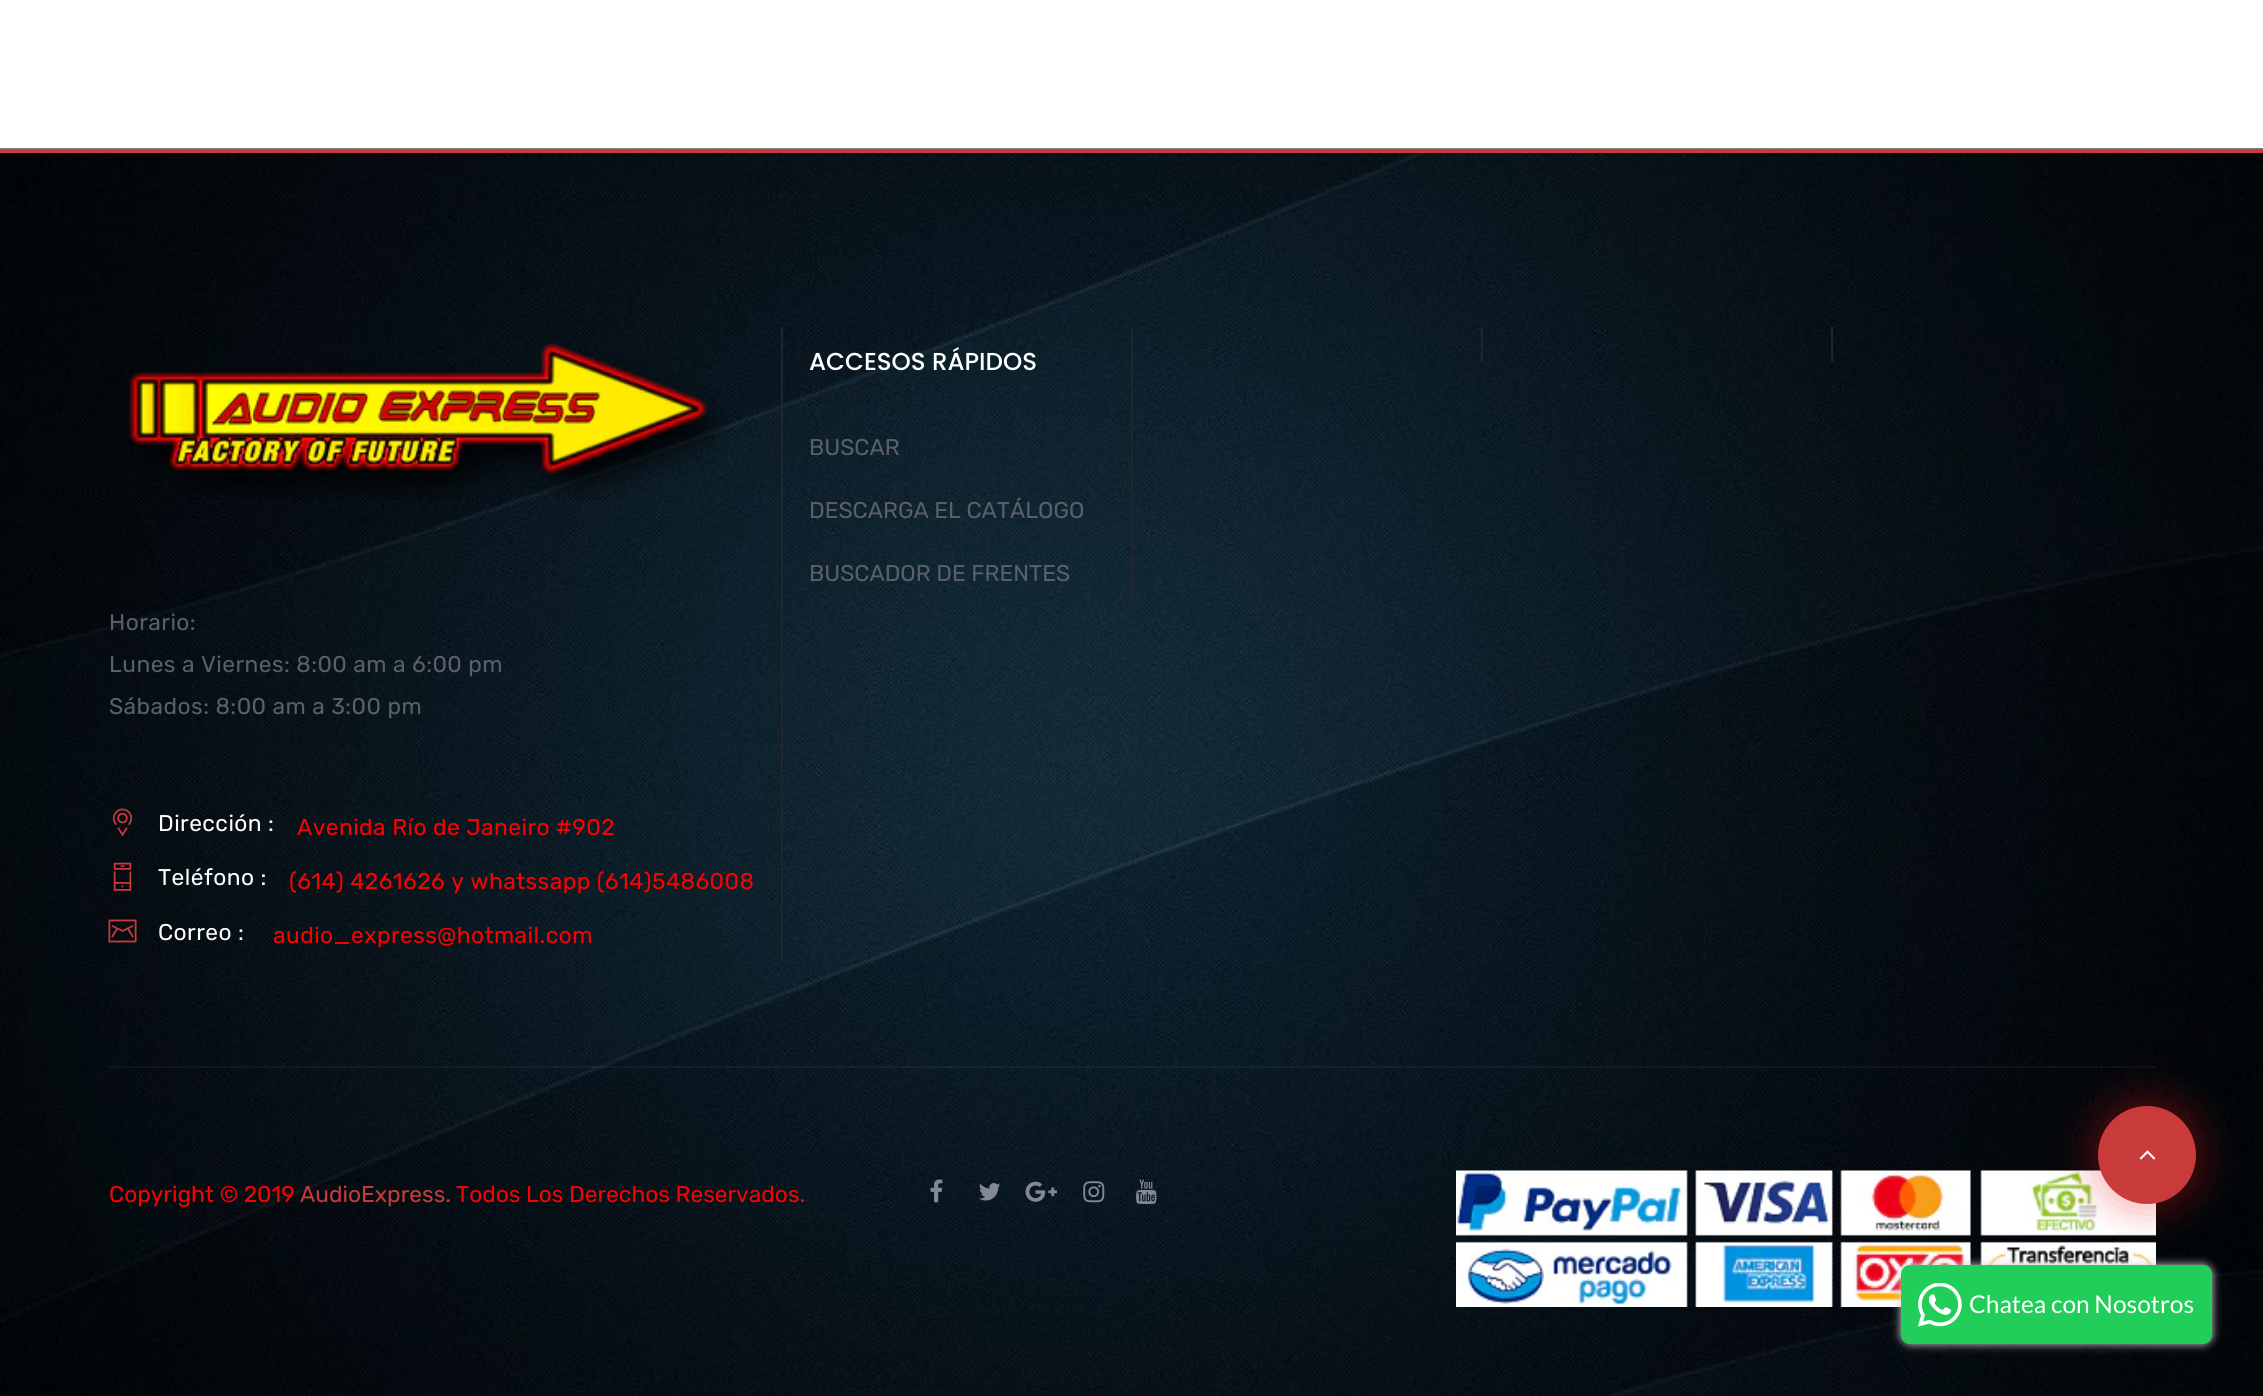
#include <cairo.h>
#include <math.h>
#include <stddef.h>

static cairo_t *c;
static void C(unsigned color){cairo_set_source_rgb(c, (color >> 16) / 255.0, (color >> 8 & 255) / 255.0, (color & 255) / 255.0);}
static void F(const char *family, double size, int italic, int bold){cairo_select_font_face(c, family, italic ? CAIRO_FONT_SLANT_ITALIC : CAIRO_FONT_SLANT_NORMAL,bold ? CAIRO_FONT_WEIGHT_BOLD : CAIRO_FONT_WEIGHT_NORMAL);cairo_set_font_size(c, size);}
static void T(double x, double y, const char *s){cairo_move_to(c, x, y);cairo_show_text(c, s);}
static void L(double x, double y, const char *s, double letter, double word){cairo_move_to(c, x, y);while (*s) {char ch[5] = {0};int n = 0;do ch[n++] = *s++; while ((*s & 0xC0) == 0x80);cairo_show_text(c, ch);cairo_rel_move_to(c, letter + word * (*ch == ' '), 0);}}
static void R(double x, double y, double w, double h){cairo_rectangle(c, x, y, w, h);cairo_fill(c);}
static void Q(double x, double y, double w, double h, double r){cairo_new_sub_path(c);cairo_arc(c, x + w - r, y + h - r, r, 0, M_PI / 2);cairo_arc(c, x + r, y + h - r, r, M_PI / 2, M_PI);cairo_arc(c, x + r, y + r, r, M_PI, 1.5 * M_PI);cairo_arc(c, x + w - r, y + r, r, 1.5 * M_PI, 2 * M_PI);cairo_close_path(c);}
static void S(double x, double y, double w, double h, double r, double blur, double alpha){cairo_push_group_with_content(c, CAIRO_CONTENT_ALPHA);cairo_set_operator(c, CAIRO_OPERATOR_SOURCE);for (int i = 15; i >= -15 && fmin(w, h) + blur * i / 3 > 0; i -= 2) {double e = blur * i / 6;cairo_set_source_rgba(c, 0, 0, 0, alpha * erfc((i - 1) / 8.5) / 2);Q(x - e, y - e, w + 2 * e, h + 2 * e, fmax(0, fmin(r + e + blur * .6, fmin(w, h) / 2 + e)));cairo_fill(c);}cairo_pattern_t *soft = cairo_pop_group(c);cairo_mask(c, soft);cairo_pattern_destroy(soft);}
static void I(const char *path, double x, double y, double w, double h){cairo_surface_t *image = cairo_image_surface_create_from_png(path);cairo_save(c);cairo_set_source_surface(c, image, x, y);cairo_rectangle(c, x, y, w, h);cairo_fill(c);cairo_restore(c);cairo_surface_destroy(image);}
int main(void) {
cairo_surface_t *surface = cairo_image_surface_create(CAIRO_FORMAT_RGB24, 2263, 1396);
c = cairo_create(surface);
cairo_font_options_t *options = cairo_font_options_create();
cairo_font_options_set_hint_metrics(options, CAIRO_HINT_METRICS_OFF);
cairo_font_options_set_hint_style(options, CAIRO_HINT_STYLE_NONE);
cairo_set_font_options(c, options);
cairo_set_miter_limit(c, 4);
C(0xffffff);
cairo_paint(c);
I("1.png",0,148,2263,1248);
C(0xc93a3a);
R(0,149,2263,4);
C(0x21252c);
R(1131,327,2,279);
F("Poppins Medium",24.5,0,0);
C(0xffffff);
T(809,370,"ACCESOS RÁPIDOS");
F("Rubik",22.75,0,0);
C(0x5a6069);
T(809,455,"BUSCAR");
T(809,518,"DESCARGA EL CATÁLOGO");
T(809,581,"BUSCADOR DE FRENTES");
C(0x21252c);
R(1481,327,2,35);
R(1831,327,2,35);
R(781,327,2,634);
I("2.png",128,343,601,157);
C(0x5a6069);
L(109,630,"Horario:",.45,0);
L(109,672,"Lunes a Viernes: 8:00 am a 6:00 pm",.45,0);
L(109,714,"Sábados: 8:00 am a 3:00 pm",.45,0);
I("3.png",112,808,21,29);
C(0xffffff);
L(158,831,"Dirección :",.45,0);
C(0xff0000);
L(297,835,"Avenida Río de Janeiro #902",.45,0);
I("4.png",113,862,19,29);
C(0xffffff);
L(158,885,"Teléfono :",.45,0);
C(0xff0000);
L(289,889,"(614) 4261626 y whatssapp (614)5486008",.45,0);
I("5.png",108,919,29,24);
C(0xffffff);
L(158,940,"Correo :",.45,0);
C(0xff0000);
L(273,943,"audio_express@hotmail.com",.45,0);
cairo_set_source_rgba(c,0.922,0.922,0.922,0.05);
R(109,1066,2047,2);
C(0xff0000);
T(109,1202,"Copyright © 2019");
C(0xc93a3a);
T(300,1202,"AudioExpress.");
C(0xff0000);
T(456,1202,"Todos Los Derechos Reservados.");
I("6.png",930,1179,13,24);
I("7.png",979,1183,22,18);
I("8.png",1025,1181,32,21);
I("9.png",1083,1181,22,22);
I("10.png",1136,1179,21,25);
I("11.png",1456,1170,700,137);
C(0xe51515);
S(2090,1097,115,116,57.5,17.5,.3);
C(0xc93a3a);
cairo_arc(c,2147,1155,49,0,2 * M_PI);
cairo_fill(c);
I("12.png",2139,1150,17,10);
C(0xd3d3d3);
S(1901,1265,311,79,9,4.5,1);
C(0x22ce5a);
Q(1901,1265,311,79,9);
cairo_fill(c);
I("13.png",1918,1283,44,44);
F("Lato",24.5,0,0);
C(0xffffff);
T(1969,1313,"Chatea con Nosotros");
cairo_surface_write_to_png(surface, "o.png");
cairo_font_options_destroy(options);
cairo_destroy(c);
cairo_surface_destroy(surface);
return 0;
}
